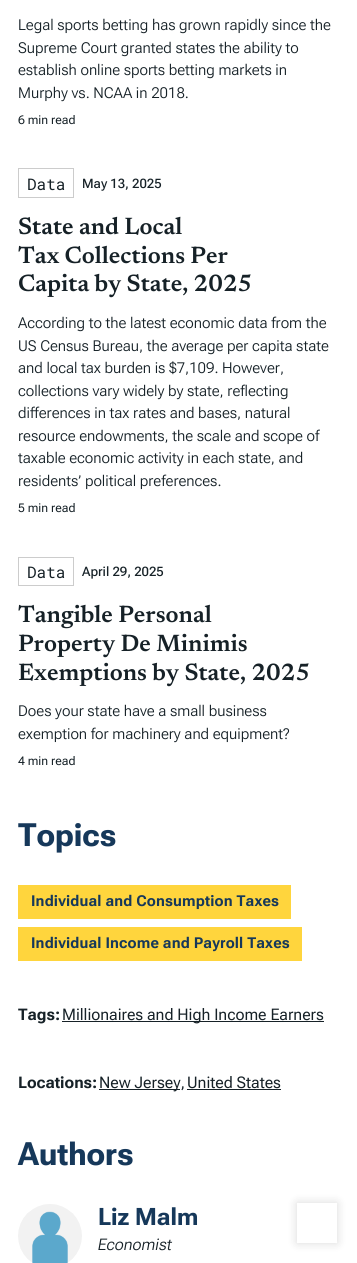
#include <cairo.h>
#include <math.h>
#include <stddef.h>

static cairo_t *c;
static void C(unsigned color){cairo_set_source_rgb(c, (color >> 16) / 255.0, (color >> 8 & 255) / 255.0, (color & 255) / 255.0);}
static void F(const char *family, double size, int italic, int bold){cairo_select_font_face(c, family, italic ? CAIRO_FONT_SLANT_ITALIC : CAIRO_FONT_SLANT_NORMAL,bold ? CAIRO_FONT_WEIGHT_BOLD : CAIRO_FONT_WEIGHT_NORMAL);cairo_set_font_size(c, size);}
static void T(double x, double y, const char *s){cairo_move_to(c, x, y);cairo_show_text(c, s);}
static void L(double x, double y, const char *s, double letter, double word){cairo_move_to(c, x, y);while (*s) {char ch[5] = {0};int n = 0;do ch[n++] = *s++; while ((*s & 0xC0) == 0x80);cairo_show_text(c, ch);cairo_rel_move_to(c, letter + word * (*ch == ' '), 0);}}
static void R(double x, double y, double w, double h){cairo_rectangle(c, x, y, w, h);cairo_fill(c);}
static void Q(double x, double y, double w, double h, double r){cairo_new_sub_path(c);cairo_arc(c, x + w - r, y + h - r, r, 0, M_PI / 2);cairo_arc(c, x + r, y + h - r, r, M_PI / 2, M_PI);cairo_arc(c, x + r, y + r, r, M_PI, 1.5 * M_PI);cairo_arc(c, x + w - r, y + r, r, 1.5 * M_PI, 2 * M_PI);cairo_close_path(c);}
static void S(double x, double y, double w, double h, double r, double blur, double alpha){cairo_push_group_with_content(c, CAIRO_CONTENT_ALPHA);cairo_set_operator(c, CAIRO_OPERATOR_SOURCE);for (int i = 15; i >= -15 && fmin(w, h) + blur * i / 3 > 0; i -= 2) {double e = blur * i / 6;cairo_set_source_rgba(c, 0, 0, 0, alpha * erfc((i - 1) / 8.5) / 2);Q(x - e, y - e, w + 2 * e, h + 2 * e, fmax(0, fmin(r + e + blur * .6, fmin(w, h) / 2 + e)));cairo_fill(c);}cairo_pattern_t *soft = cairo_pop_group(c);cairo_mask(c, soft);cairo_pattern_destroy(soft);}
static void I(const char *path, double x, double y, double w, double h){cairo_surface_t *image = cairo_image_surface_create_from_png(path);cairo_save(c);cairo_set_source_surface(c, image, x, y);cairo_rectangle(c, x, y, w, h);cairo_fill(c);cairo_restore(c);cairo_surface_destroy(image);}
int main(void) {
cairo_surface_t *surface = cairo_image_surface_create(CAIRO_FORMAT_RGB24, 357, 1263);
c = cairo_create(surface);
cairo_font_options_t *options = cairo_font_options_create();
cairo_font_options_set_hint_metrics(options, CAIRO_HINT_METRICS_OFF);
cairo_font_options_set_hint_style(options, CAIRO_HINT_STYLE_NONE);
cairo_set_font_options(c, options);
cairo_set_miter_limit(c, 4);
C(0xffffff);
cairo_paint(c);
F("Roboto Flex Light",15,0,0);
C(0x162127);
T(18,30,"Legal sports betting has grown rapidly since the");
T(18,53,"Supreme Court granted states the ability to");
T(18,75,"establish online sports betting markets in");
T(18,98,"Murphy vs. NCAA in 2018.");
F("Roboto Flex",12,0,0);
T(18,124,"6 min read");
cairo_rectangle(c,18.5,168.5,55,29);
C(0xcccccc);
cairo_set_line_width(c,1);
cairo_stroke(c);
F("Roboto Mono",16,0,0);
C(0x162127);
T(27,190,"Data");
F("Roboto Flex Medium",13,0,0);
T(82,188,"May 13, 2025");
F("Newsreader SemiBold",24,0,0);
T(18,234,"State and Local");
T(18,263,"Tax Collections Per");
T(18,291,"Capita by State, 2025");
F("Roboto Flex Light",15,0,0);
T(18,328,"According to the latest economic data from the");
T(18,351,"US Census Bureau, the average per capita state");
T(18,373,"and local tax burden is $7,109. However,");
T(18,396,"collections vary widely by state, reflecting");
T(18,418,"differences in tax rates and bases, natural");
T(18,441,"resource endowments, the scale and scope of");
T(18,463,"taxable economic activity in each state, and");
T(18,486,"residents’ political preferences.");
F("Roboto Flex",12,0,0);
T(18,512,"5 min read");
cairo_rectangle(c,18.5,557.5,55,28);
C(0xcccccc);
cairo_stroke(c);
F("Roboto Mono",16,0,0);
C(0x162127);
T(27,578,"Data");
F("Roboto Flex Medium",13,0,0);
T(82,576,"April 29, 2025");
F("Newsreader SemiBold",24,0,0);
T(18,622,"Tangible Personal");
T(18,651,"Property De Minimis");
T(18,680,"Exemptions by State, 2025");
F("Roboto Flex Light",15,0,0);
T(18,716,"Does your state have a small business");
T(18,739,"exemption for machinery and equipment?");
F("Roboto Flex",12,0,0);
T(18,765,"4 min read");
F("Roboto Flex",32,0,1);
C(0x16385a);
T(18,846,"Topics");
C(0xffd53d);
R(18,885,273,34);
F("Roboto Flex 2",15,0,1);
C(0x16385a);
L(31,906,"Individual and Consumption Taxes",.15,0);
C(0xffd53d);
R(18,927,284,34);
C(0x16385a);
L(31,948,"Individual Income and Payroll Taxes",.15,0);
F("Roboto Flex 2",16,0,1);
C(0x162127);
T(18,1020,"Tags:");
R(62,1021,262,1);
F("Roboto Flex 2",16,0,0);
T(62,1020,"Millionaires and High Income Earners");
F("Roboto Flex 2",16,0,1);
T(18,1088,"Locations:");
R(99,1089,81,1);
F("Roboto Flex 2",16,0,0);
T(99,1088,"New Jersey,");
T(187,1088,"United States");
R(187,1089,94,1);
F("Roboto Flex",32,0,1);
C(0x16385a);
T(18,1165,"Authors");
I("1.png",18,1204,64,59);
F("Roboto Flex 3",24,0,1);
T(98,1225,"Liz Malm");
F("Roboto Flex Light",16,1,0);
C(0x162127);
T(98,1250,"Economist");
cairo_save(c);
cairo_set_fill_rule(c,CAIRO_FILL_RULE_EVEN_ODD);
cairo_new_path(c);
cairo_move_to(c,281,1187);
cairo_line_to(c,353,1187);
cairo_line_to(c,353,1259);
cairo_line_to(c,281,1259);
cairo_close_path(c);
cairo_move_to(c,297,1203);
cairo_line_to(c,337,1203);
cairo_line_to(c,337,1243);
cairo_line_to(c,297,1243);
cairo_close_path(c);
cairo_clip(c);
C(0x000000);
S(297,1203,40,40,0,5,.15);
cairo_restore(c);
cairo_surface_write_to_png(surface, "o.png");
cairo_font_options_destroy(options);
cairo_destroy(c);
cairo_surface_destroy(surface);
return 0;
}
